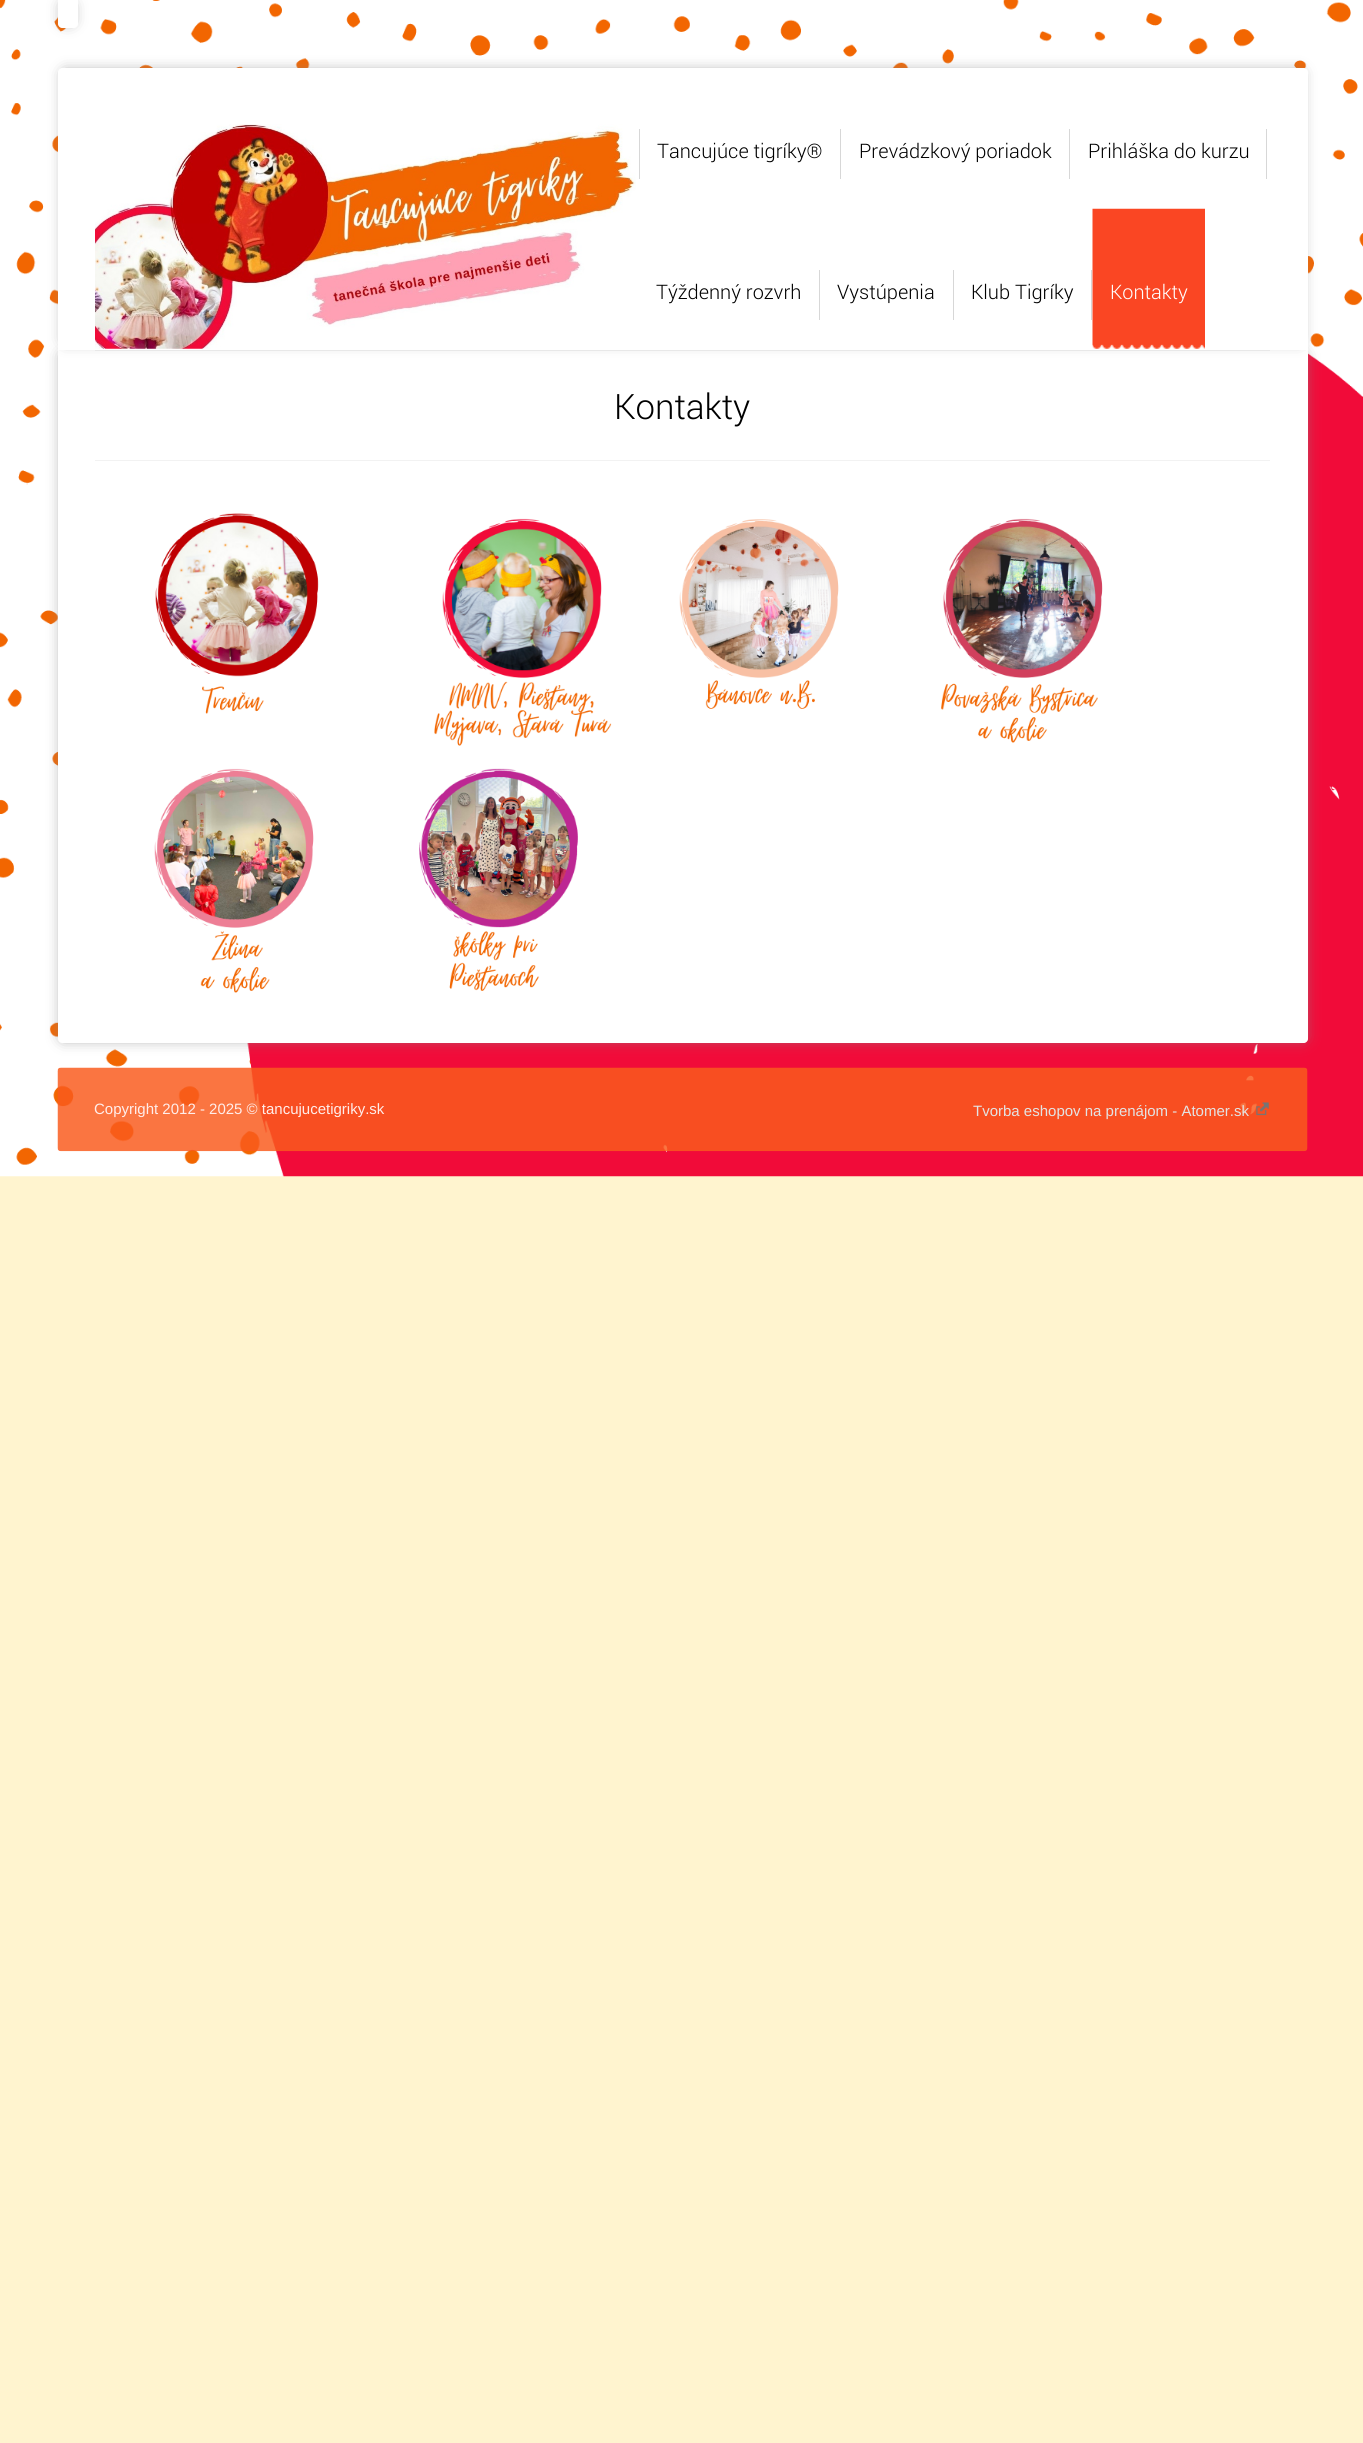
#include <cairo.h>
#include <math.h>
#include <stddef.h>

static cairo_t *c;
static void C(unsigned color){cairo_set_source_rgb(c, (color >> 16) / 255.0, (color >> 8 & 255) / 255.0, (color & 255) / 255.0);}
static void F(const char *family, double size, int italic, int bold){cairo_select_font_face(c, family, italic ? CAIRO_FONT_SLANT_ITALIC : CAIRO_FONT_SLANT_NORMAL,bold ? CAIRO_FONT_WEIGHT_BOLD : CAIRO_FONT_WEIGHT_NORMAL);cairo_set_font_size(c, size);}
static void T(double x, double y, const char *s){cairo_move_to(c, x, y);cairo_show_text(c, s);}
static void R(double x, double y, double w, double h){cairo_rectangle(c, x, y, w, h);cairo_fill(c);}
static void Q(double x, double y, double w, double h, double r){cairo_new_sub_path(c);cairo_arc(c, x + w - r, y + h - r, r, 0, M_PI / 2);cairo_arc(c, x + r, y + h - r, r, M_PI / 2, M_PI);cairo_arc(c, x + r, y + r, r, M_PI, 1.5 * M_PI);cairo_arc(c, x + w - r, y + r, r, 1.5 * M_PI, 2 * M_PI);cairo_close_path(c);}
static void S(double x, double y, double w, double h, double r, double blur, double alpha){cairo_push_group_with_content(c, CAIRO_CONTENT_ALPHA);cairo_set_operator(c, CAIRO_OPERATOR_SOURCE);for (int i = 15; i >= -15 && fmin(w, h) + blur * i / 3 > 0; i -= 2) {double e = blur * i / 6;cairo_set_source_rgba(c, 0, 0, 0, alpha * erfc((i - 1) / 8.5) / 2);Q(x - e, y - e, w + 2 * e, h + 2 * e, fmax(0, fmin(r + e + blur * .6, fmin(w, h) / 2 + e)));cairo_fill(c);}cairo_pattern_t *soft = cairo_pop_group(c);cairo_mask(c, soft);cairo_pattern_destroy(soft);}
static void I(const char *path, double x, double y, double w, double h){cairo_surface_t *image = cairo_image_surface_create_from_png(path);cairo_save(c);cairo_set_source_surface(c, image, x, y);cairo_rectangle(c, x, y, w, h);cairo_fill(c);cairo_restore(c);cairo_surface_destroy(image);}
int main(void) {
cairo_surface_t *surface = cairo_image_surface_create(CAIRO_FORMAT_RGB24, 1363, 2443);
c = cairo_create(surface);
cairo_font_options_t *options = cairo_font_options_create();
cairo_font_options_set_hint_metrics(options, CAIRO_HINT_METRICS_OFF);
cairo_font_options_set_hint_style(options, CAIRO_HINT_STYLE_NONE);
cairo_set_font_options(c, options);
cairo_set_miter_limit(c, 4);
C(0xfff4cf);
cairo_paint(c);
I("1.png",0,0,1363,1177);
C(0x888888);
S(63,355,1240,683,0,7.5,1);
C(0xffffff);
cairo_new_path(c);
cairo_move_to(c,58,350);
cairo_line_to(c,1308,350);
cairo_line_to(c,1308,1039);
cairo_curve_to(c,1308,1041,1306,1043,1304,1043);
cairo_line_to(c,62,1043);
cairo_curve_to(c,60,1043,58,1041,58,1039);
cairo_close_path(c);
cairo_fill(c);
C(0xf2f2f2);
R(95,350,1175,1);
C(0x888888);
S(65,73,1235,267,0,7.5,1);
C(0xffffff);
cairo_new_path(c);
cairo_move_to(c,62,68);
cairo_line_to(c,1304,68);
cairo_curve_to(c,1306,68,1308,70,1308,72);
cairo_line_to(c,1308,350);
cairo_line_to(c,58,350);
cairo_line_to(c,58,72);
cairo_curve_to(c,58,70,60,68,62,68);
cairo_close_path(c);
cairo_fill(c);
C(0x888888);
S(64,6,7,15,0,7.5,1);
C(0xffffff);
cairo_new_path(c);
cairo_move_to(c,58,0);
cairo_line_to(c,78,0);
cairo_line_to(c,78,24);
cairo_curve_to(c,78,26,76,28,74,28);
cairo_line_to(c,62,28);
cairo_curve_to(c,60,28,58,26,58,24);
cairo_close_path(c);
cairo_fill(c);
I("2.png",95,124,541,225);
C(0xd7d7d7);
R(639,129,1,50);
F("Roboto Light",20,0,0);
C(0x000000);
T(657,158,"Tancujúce tigríky®");
C(0xd7d7d7);
R(840,129,1,50);
C(0x000000);
T(859,158,"Prevádzkový poriadok");
C(0xd7d7d7);
R(1069,129,1,50);
C(0x000000);
T(1088,158,"Prihláška do kurzu");
C(0xd7d7d7);
R(1266,129,1,50);
C(0x000000);
T(656,299,"Týždenný rozvrh");
C(0xd7d7d7);
R(819,270,1,50);
C(0x000000);
T(837,299,"Vystúpenia");
C(0xd7d7d7);
R(953,270,1,50);
C(0x000000);
T(971,299,"Klub Tigríky");
C(0xd7d7d7);
R(1091,270,1,50);
I("3.png",1092,208,113,141);
C(0xffffff);
T(1110,299,"Kontakty");
C(0xf2f2f2);
R(95,460,1175,1);
F("Roboto Light",35,0,0);
C(0x000000);
T(614,419,"Kontakty");
I("4.png",155,513,164,201);
I("5.png",434,518,178,228);
I("6.png",679,519,160,190);
I("7.png",941,518,162,225);
I("8.png",154,768,160,225);
I("9.png",419,768,159,223);
I("10.png",57,1067,1251,85);
F("Liberation Sans",15,0,0);
C(0xffedea);
T(94,1114,"Copyright 2012 - 2025 © tancujucetigriky.sk");
C(0xe3e3e3);
T(973,1116,"Tvorba eshopov na prenájom - Atomer.sk");
I("11.png",1256,1102,13,14);
cairo_surface_write_to_png(surface, "o.png");
cairo_font_options_destroy(options);
cairo_destroy(c);
cairo_surface_destroy(surface);
return 0;
}
